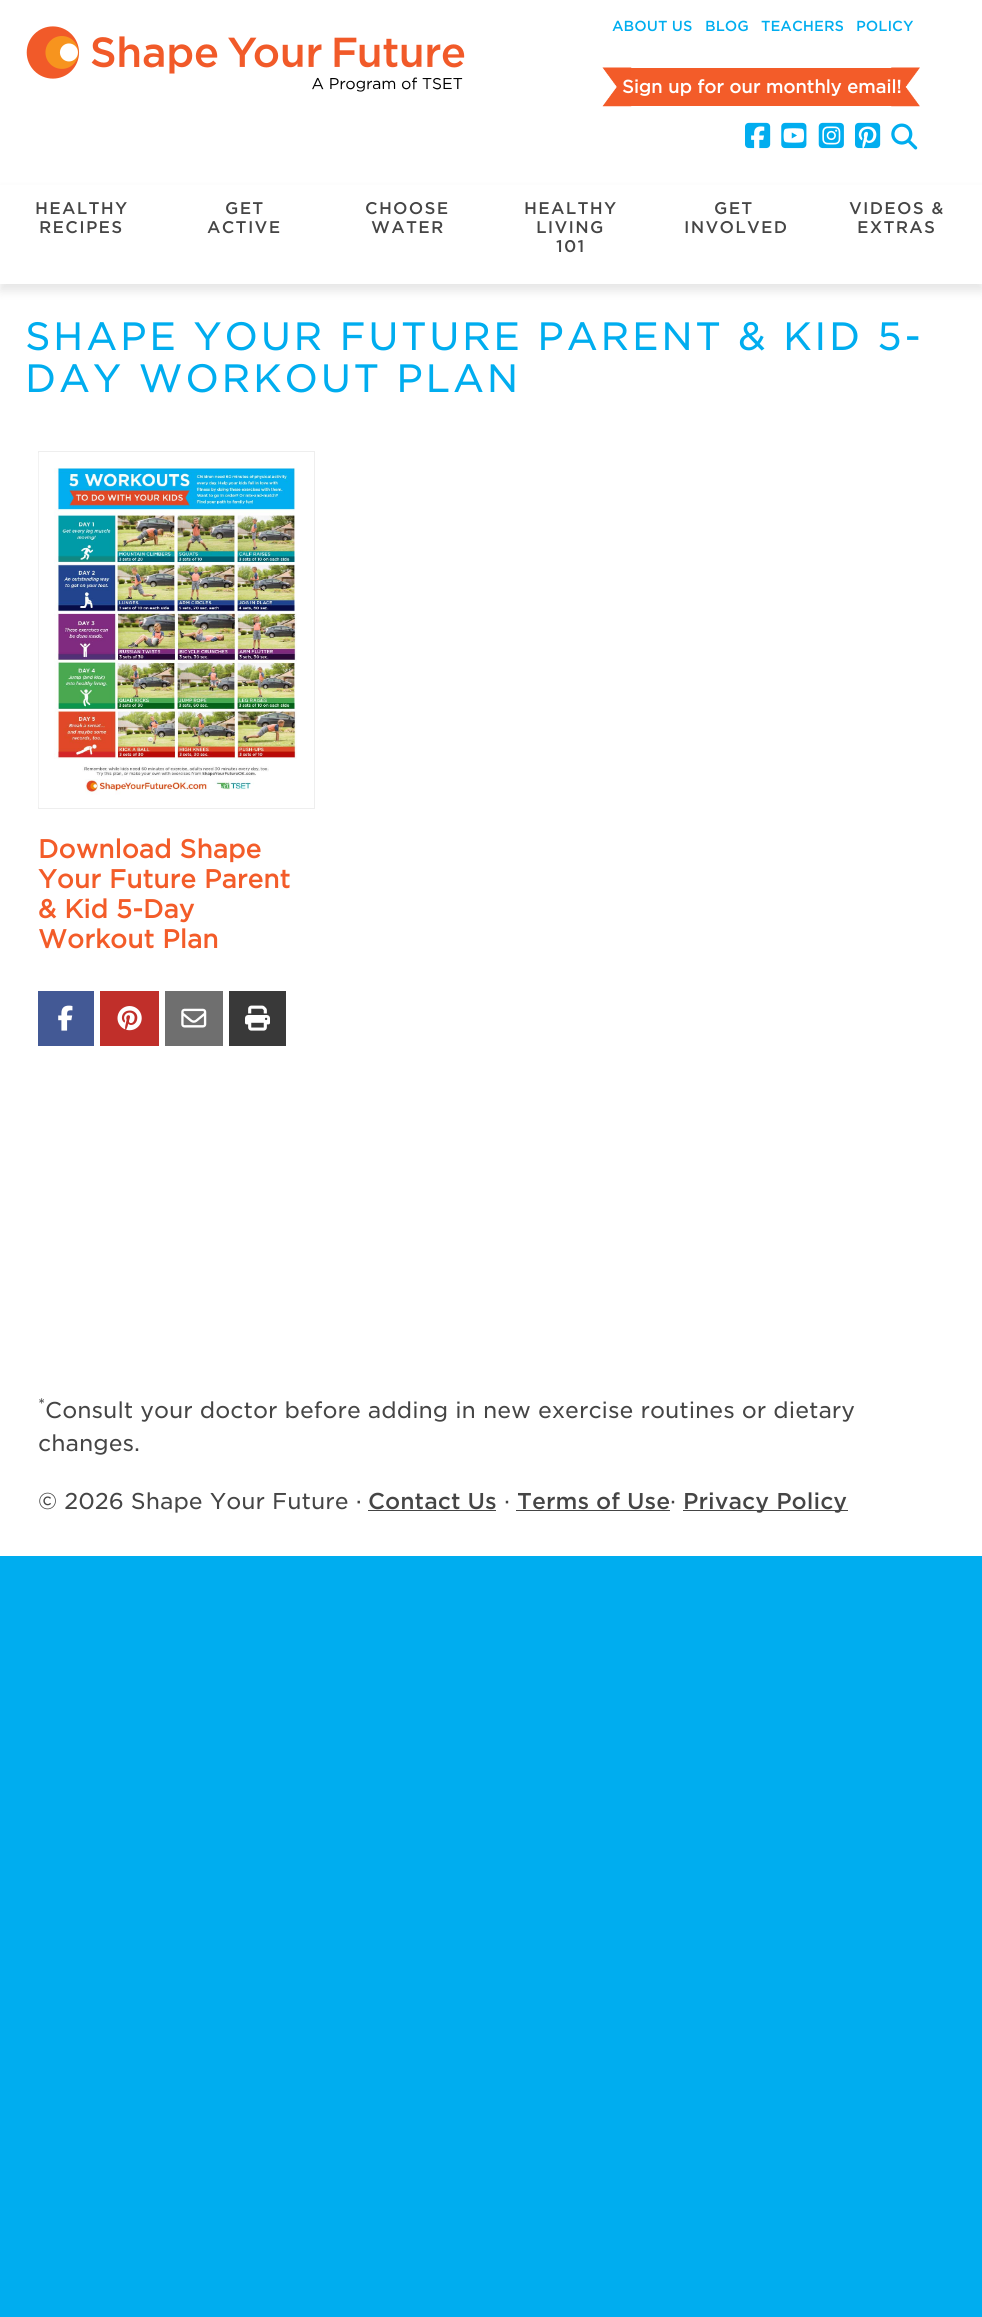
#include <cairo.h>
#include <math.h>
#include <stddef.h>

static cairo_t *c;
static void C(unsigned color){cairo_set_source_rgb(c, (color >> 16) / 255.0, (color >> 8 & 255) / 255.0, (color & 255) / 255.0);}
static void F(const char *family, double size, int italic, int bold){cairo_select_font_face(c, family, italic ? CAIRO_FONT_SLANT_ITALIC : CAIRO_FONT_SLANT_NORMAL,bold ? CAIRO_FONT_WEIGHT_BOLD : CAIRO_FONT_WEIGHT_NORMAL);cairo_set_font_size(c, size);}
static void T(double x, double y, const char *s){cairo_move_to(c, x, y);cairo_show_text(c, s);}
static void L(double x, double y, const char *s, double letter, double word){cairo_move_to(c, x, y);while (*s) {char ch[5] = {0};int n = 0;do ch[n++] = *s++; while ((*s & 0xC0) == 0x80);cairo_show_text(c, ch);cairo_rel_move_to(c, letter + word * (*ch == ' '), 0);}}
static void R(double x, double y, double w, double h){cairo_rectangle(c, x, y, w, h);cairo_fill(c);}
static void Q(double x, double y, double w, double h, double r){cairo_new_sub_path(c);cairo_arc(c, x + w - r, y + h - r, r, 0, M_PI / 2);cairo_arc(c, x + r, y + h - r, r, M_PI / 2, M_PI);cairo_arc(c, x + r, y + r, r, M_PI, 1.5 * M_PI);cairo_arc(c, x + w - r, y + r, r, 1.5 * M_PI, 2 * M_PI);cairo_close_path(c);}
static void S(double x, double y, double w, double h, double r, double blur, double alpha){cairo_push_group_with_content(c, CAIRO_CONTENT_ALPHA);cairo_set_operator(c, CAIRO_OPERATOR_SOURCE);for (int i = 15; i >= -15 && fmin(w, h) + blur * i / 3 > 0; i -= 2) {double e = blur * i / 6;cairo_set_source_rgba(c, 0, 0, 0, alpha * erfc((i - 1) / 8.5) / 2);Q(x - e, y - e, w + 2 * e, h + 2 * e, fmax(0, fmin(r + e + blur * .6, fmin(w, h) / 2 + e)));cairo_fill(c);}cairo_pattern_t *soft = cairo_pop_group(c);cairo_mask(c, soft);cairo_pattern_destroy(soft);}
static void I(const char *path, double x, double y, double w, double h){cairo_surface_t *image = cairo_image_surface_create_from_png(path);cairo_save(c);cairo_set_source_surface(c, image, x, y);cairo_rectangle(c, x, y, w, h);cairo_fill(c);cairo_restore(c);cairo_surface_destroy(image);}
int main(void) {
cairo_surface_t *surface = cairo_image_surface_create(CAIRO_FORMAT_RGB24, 982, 2317);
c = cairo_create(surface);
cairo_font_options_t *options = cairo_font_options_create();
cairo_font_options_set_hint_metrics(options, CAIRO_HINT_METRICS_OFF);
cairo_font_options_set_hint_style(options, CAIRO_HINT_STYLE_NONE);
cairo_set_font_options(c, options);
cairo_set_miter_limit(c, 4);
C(0x00adef);
cairo_paint(c);
C(0xffffff);
R(0,0,982,1556);
I("1.png",26,26,439,66);
F("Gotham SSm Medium",14,0,0);
C(0x00adef);
T(612,31,"ABOUT US");
T(705,31,"BLOG");
T(761,31,"TEACHERS");
T(856,31,"POLICY");
C(0xf35c29);
R(631,68,261,38);
I("2.png",602,67,318,40);
F("Gotham SSm",17.5,0,1);
C(0xffffff);
T(622,93,"Sign up for our monthly email!");
I("3.png",745,122,26,27);
I("4.png",781,122,26,27);
I("5.png",818,122,26,27);
I("6.png",855,122,26,27);
I("7.png",891,123,27,27);
C(0x000000);
S(0,191,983,100,0,5,.1);
C(0xffffff);
R(0,185,982,99);
F("Gotham SSm Medium",16.25,0,0);
C(0x454545);
L(35,214,"HEALTHY",1.25,0);
L(39,233,"RECIPES",1.25,0);
L(225,214,"GET",1.25,0);
L(207,233,"ACTIVE",1.25,0);
L(365,214,"CHOOSE",1.25,0);
L(371,233,"WATER",1.25,0);
L(524,214,"HEALTHY",1.25,0);
L(536,233,"LIVING",1.25,0);
L(556,252,"101",1.25,0);
L(714,214,"GET",1.25,0);
L(684,233,"INVOLVED",1.25,0);
L(849,214,"VIDEOS &",1.25,0);
L(857,233,"EXTRAS",1.25,0);
F("Gotham SSm",38,0,0);
C(0x00adef);
L(25,350,"SHAPE YOUR FUTURE PARENT & KID 5-",2.5,0);
L(25,392,"DAY WORKOUT PLAN",2.5,0);
cairo_rectangle(c,38.5,451.5,276,357);
C(0xeeeeee);
cairo_set_line_width(c,1);
cairo_stroke(c);
I("8.png",38,453,259,354);
F("Gotham SSm",25,0,1);
C(0xf35c29);
T(38,858,"Download Shape");
T(38,888,"Your Future Parent");
T(38,918,"& Kid 5-Day");
T(38,948,"Workout Plan");
C(0x435995);
R(38,991,56,55);
I("9.png",58,1005,15,26);
C(0xc02f2a);
R(100,991,59,55);
I("10.png",117,1006,25,25);
C(0x6f6f6f);
R(165,991,58,55);
I("11.png",181,1008,26,20);
C(0x393939);
R(229,991,57,55);
I("12.png",245,1005,25,26);
F("Gotham SSm",16,0,0);
C(0x454545);
T(38,1410,"*");
F("Gotham SSm",22,0,0);
T(45,1418,"Consult your doctor before adding in new exercise routines or dietary");
T(38,1451,"changes.");
T(38,1509,"© 2026 Shape Your Future ·");
F("Gotham SSm Medium",22,0,0);
T(368,1509,"Contact Us");
C(0x444444);
R(368,1510,128,1);
F("Gotham SSm",22,0,0);
C(0x454545);
T(504,1509,"·");
F("Gotham SSm Medium",22,0,0);
T(517,1509,"Terms of Use");
C(0x444444);
R(516,1510,154,1);
F("Gotham SSm",22,0,0);
C(0x454545);
T(670,1509,"·");
C(0x444444);
R(683,1510,165,1);
F("Gotham SSm Medium",22,0,0);
C(0x454545);
T(683,1509,"Privacy Policy");
cairo_surface_write_to_png(surface, "o.png");
cairo_font_options_destroy(options);
cairo_destroy(c);
cairo_surface_destroy(surface);
return 0;
}
